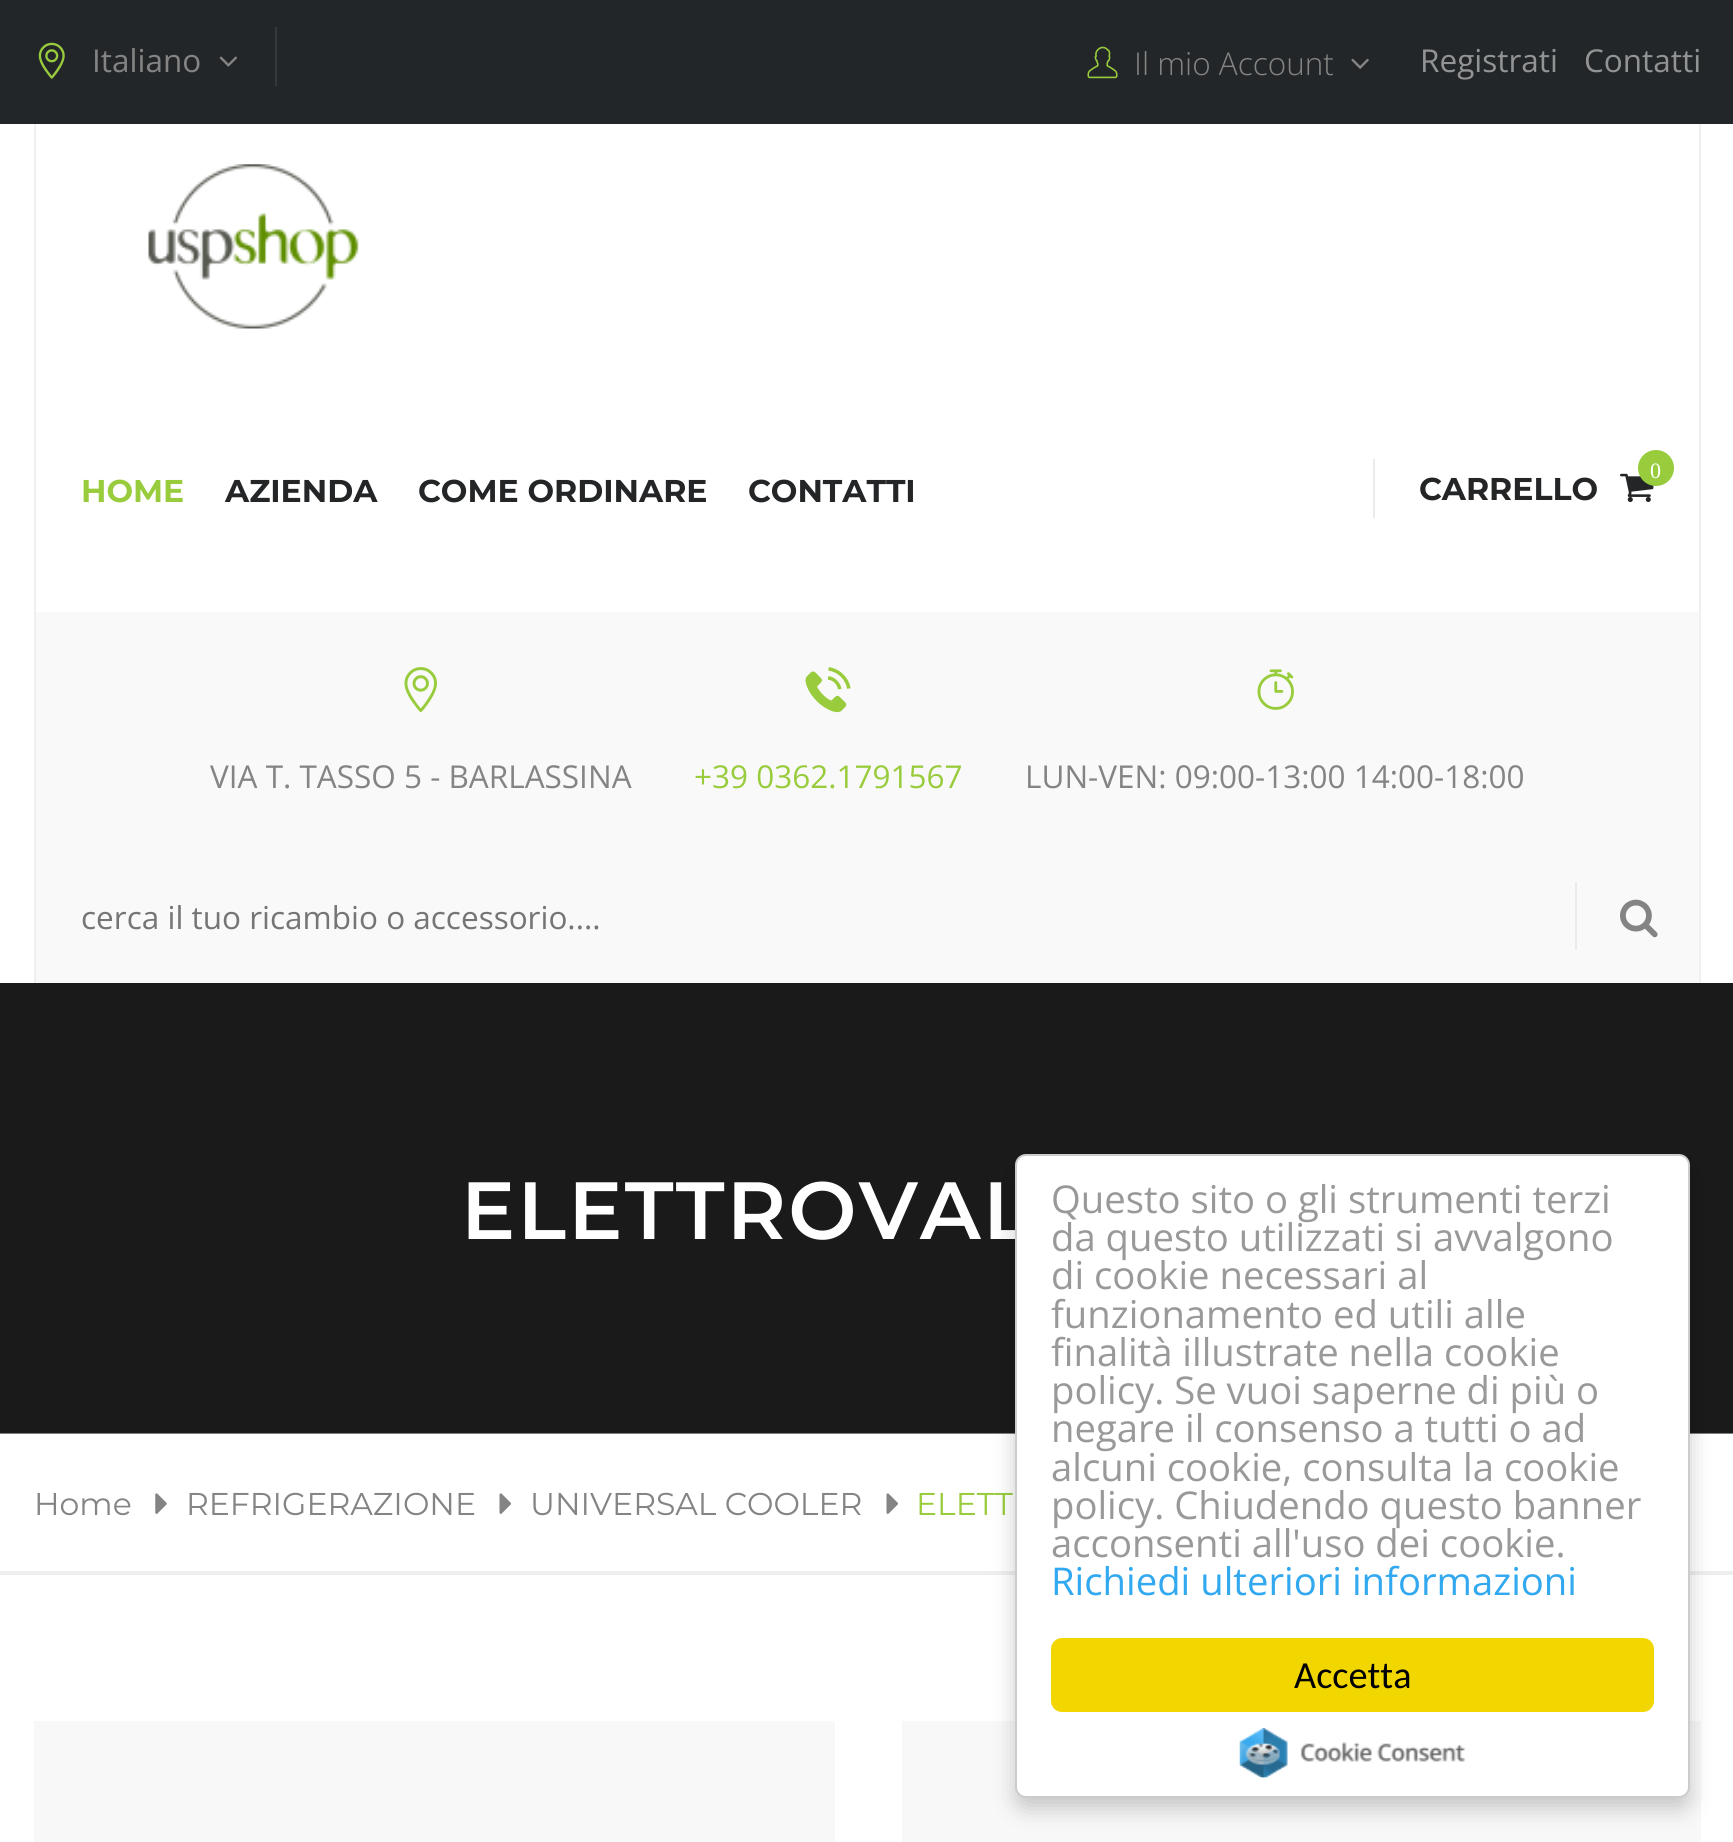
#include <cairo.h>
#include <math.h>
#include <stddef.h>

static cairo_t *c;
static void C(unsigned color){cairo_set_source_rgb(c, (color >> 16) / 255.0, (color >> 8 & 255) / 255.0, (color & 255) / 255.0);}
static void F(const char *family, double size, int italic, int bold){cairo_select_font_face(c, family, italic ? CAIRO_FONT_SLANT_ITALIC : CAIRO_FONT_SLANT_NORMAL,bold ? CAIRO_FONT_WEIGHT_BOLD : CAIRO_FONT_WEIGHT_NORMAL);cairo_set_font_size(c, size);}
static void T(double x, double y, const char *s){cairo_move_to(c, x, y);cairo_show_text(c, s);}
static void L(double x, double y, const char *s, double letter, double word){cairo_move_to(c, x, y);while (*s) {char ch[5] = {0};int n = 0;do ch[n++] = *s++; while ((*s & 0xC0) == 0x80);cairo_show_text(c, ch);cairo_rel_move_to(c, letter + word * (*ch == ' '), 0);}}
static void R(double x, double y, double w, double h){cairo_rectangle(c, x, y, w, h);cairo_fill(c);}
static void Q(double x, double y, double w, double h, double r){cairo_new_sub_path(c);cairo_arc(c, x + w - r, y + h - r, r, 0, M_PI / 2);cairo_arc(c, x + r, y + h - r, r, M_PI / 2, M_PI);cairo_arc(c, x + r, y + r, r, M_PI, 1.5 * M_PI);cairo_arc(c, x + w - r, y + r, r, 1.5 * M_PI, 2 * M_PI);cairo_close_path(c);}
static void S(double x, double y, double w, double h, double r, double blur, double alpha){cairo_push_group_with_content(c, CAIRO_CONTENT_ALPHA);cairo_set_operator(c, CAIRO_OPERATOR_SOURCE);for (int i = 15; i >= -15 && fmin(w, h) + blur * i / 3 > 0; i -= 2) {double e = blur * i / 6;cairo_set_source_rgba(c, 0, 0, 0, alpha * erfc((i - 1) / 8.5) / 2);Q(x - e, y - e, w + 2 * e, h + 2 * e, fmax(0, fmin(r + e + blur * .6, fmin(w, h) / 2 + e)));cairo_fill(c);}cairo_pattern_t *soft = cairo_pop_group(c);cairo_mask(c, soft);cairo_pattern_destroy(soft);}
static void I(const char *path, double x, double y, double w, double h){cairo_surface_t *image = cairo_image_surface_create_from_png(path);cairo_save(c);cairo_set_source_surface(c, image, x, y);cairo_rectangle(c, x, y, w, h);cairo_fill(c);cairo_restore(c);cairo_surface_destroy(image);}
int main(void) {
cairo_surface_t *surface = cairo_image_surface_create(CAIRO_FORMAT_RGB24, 1733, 1842);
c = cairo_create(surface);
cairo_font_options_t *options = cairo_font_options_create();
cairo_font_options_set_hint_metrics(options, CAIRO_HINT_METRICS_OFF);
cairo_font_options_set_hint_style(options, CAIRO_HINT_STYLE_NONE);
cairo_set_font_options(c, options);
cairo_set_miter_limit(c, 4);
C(0xffffff);
cairo_paint(c);
C(0x232628);
R(0,0,1733,124);
C(0x35393b);
R(275,27,2,59);
I("1.png",38,42,27,37);
F("Open Sans",31.5,0,0);
C(0x848484);
T(92,72,"Italiano");
I("2.png",219,56,18,11);
I("3.png",1087,46,31,33);
F("Open Sans Light",31.5,0,0);
T(1134,75,"Il mio Account");
I("4.png",1351,58,18,11);
F("Open Sans",31.5,0,0);
C(0x919394);
T(1420,72,"Registrati");
T(1584,72,"Contatti");
I("5.png",148,164,211,165);
F("Montserrat",31.5,0,1);
C(0x99cc3d);
T(81,502,"HOME");
C(0x232527);
T(225,502,"AZIENDA");
T(418,502,"COME ORDINARE");
T(748,502,"CONTATTI");
C(0xebebeb);
R(1373,459,2,59);
I("6.png",1620,473,34,30);
C(0x99cc3d);
cairo_arc(c,1656,468,18,0,2 * M_PI);
cairo_fill(c);
F("Liberation Serif",22,0,0);
C(0xffffff);
T(1650,478,"0");
F("Montserrat",31.5,0,1);
C(0x232527);
T(1419,500,"CARRELLO");
C(0xf9f9f9);
R(36,612,1663,371);
C(0xf0f0f0);
R(1699,124,2,859);
R(34,124,2,859);
I("7.png",404,667,33,46);
F("Open Sans",31.5,0,0);
C(0x848484);
T(210,788,"VIA T. TASSO 5 - BARLASSINA");
I("8.png",805,667,46,46);
C(0x99cc3d);
T(694,788,"+39 0362.1791567");
I("9.png",1257,669,37,41);
C(0x848484);
T(1025,788,"LUN-VEN: 09:00-13:00 14:00-18:00");
C(0x757575);
T(81,929,"cerca il tuo ricambio o accessorio....");
C(0xebebeb);
R(1575,882,2,68);
I("10.png",1620,899,38,39);
C(0x808080);
R(0,1433,1733,1);
C(0x1a1a1a);
R(0,983,1733,450);
F("Montserrat SemiBold",81,0,0);
C(0xffffff);
L(461,1239,"ELETTROVAL",2.25,0);
C(0xeeeeee);
R(0,1571,1733,4);
F("Montserrat",31.5,0,0);
C(0x848484);
T(34,1515,"Home");
I("11.png",155,1493,12,21);
T(186,1515,"REFRIGERAZIONE");
I("12.png",499,1493,12,21);
T(530,1515,"UNIVERSAL COOLER");
I("12.png",886,1493,12,21);
C(0x99cc3d);
T(916,1515,"ELETT");
C(0xf8f8f8);
R(34,1721,801,121);
R(902,1721,799,121);
C(0x000000);
S(1015,1166,675,643,11,11,.2);
C(0xffffff);
Q(1016,1155,673,642,10);
cairo_fill_preserve(c);
C(0xcccccc);
cairo_stroke(c);
F("Open Sans",38.25,0,0);
C(0x999999);
T(1051,1213,"Questo sito o gli strumenti terzi");
T(1051,1251,"da questo utilizzati si avvalgono");
T(1051,1289,"di cookie necessari al");
T(1051,1328,"funzionamento ed utili alle");
T(1051,1366,"finalità illustrate nella cookie");
T(1051,1404,"policy. Se vuoi saperne di più o");
T(1051,1442,"negare il consenso a tutti o ad");
T(1051,1481,"alcuni cookie, consulta la cookie");
T(1051,1519,"policy. Chiudendo questo banner");
T(1051,1557,"acconsenti all'uso dei cookie.");
C(0x31a8f0);
T(1051,1595,"Richiedi ulteriori informazioni");
C(0xf1d600);
Q(1051,1638,603,74,11);
cairo_fill(c);
F("Carlito",38.25,0,0);
C(0x000000);
T(1294,1688,"Accetta");
I("13.png",1239,1728,226,50);
cairo_surface_write_to_png(surface, "o.png");
cairo_font_options_destroy(options);
cairo_destroy(c);
cairo_surface_destroy(surface);
return 0;
}
